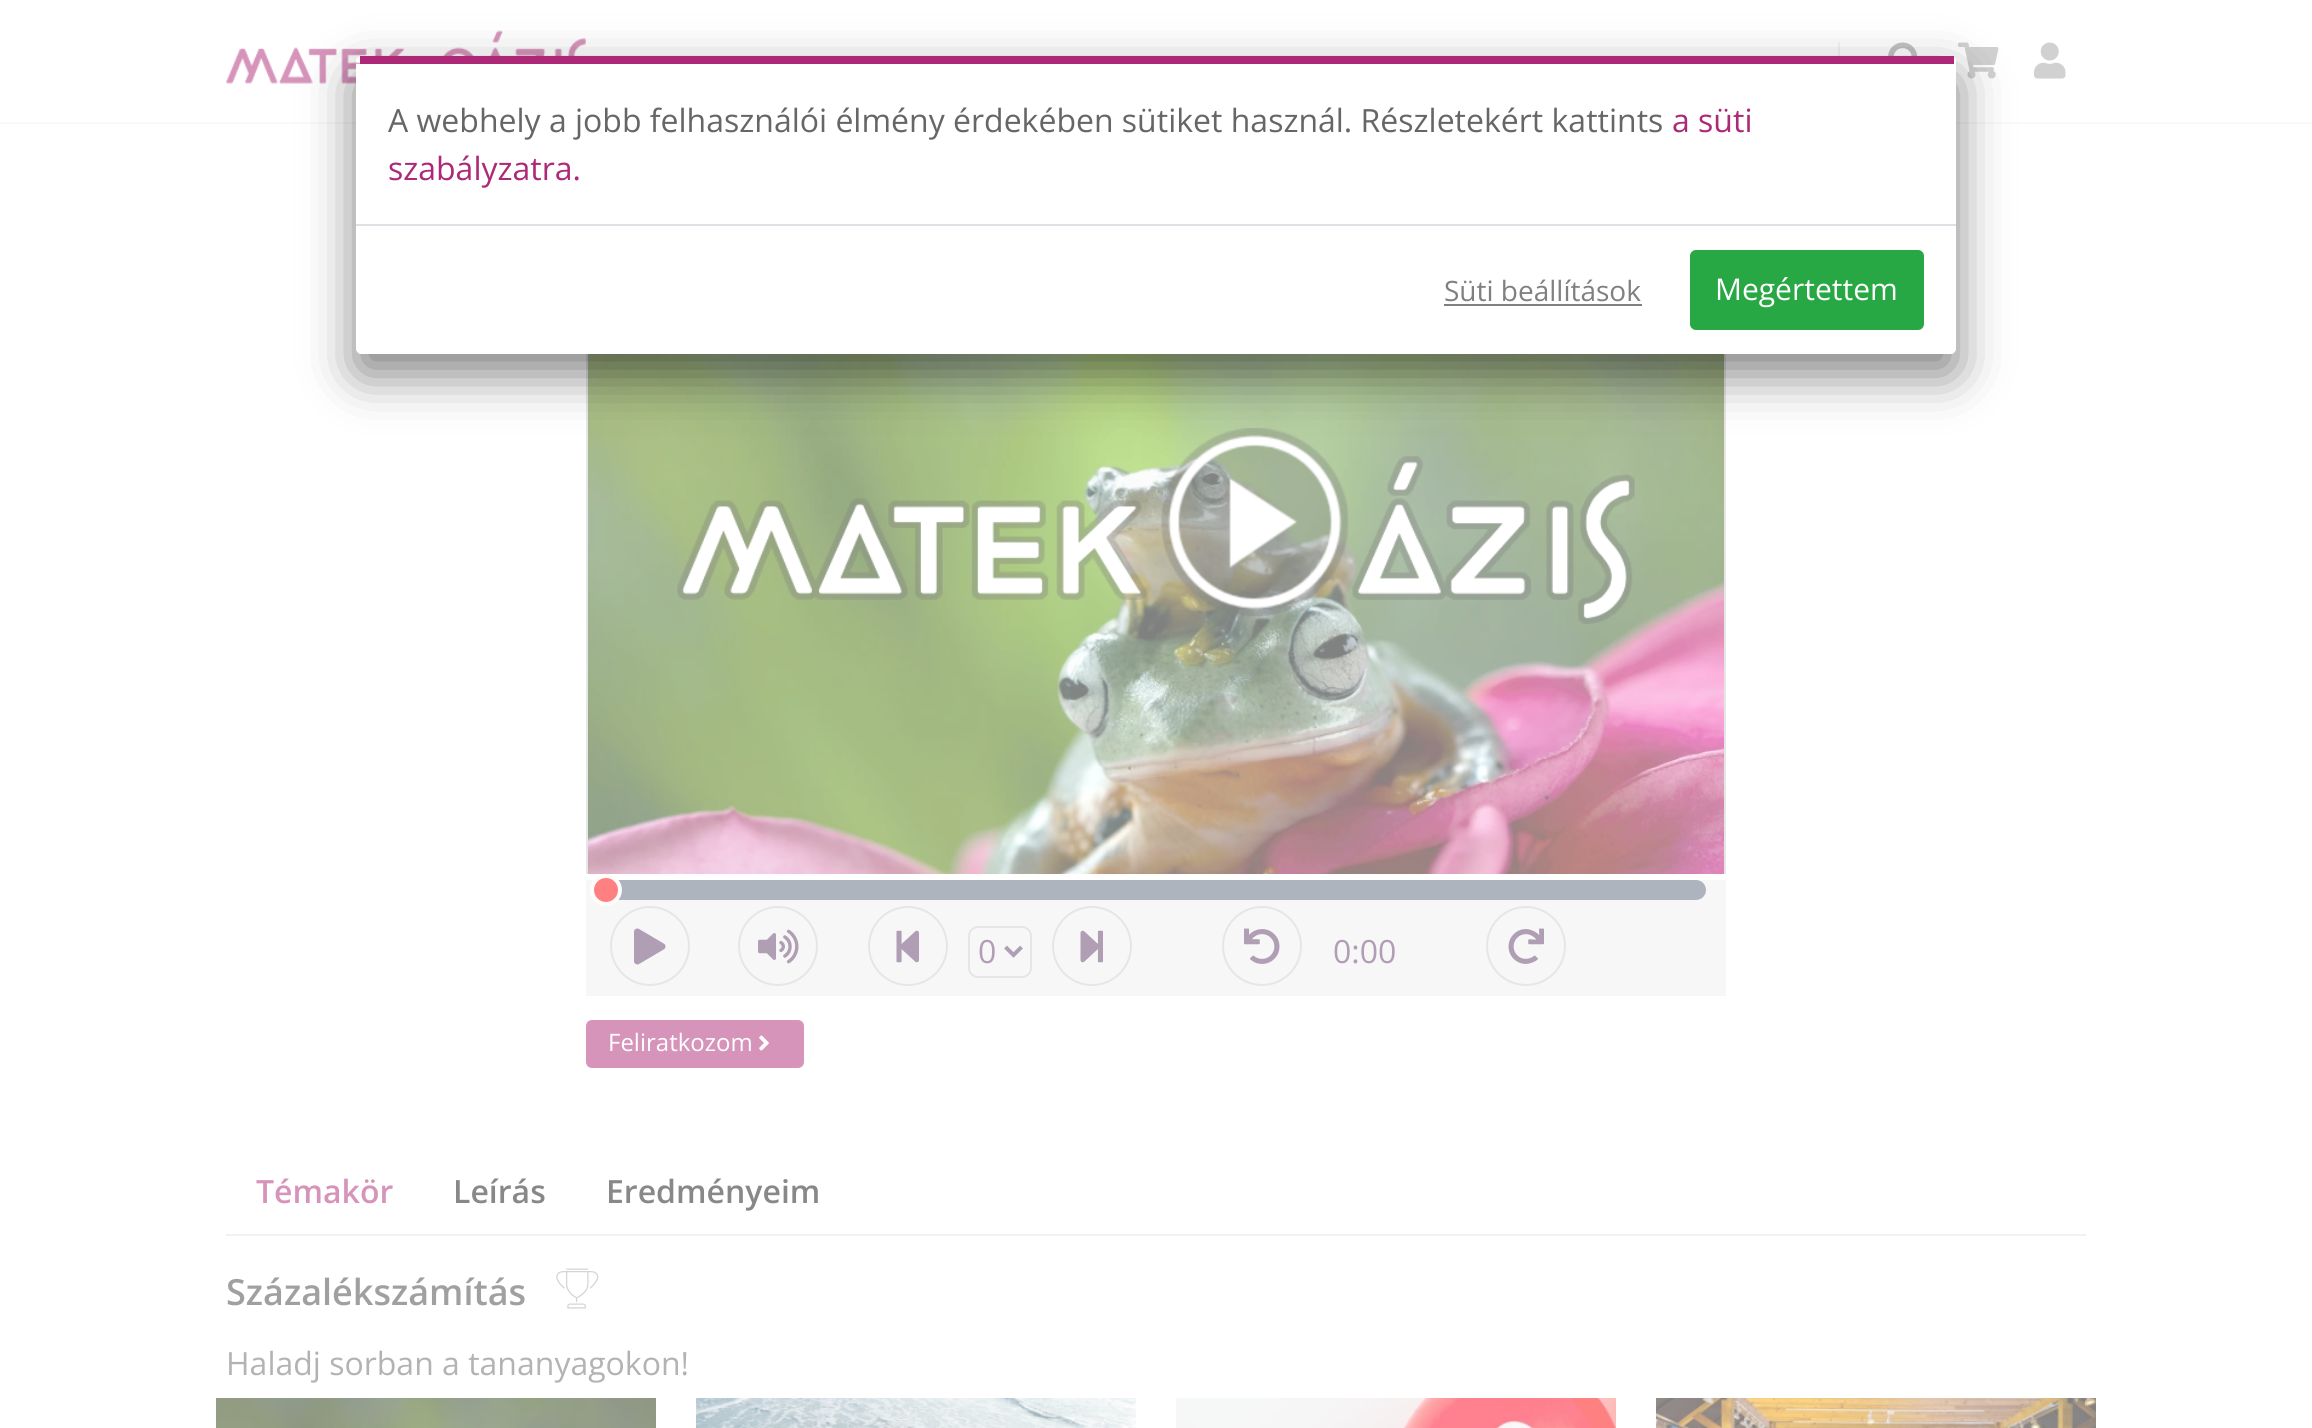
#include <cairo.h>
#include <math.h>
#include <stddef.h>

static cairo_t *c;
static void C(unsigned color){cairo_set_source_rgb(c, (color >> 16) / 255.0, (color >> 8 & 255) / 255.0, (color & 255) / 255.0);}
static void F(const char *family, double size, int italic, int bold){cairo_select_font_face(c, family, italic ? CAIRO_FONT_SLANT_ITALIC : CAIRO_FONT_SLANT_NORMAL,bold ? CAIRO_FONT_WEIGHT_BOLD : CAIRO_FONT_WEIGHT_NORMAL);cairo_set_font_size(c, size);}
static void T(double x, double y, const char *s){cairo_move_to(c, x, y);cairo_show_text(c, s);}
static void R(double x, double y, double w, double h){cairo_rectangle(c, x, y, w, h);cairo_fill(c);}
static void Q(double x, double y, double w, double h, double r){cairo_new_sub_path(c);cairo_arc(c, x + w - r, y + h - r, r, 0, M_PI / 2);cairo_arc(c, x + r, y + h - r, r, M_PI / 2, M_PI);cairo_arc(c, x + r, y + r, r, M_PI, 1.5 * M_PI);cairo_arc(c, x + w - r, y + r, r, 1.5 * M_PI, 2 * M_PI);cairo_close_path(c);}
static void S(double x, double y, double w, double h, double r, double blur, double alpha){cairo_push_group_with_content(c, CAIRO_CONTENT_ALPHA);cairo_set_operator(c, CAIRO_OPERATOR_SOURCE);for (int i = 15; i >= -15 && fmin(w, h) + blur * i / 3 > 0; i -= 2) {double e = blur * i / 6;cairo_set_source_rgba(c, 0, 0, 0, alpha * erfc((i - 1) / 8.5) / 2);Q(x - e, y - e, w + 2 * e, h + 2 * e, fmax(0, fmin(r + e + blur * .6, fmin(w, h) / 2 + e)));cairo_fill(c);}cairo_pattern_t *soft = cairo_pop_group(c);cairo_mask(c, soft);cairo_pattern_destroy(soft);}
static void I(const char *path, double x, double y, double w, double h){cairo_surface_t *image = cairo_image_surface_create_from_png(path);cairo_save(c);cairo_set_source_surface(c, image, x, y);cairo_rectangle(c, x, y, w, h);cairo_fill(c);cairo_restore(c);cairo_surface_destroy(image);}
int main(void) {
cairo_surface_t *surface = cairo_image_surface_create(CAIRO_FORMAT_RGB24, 2312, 1428);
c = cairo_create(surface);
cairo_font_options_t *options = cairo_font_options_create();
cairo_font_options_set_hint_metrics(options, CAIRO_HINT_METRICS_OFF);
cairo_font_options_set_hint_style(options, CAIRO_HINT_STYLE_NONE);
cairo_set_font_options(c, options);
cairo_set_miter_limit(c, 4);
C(0xffffff);
cairo_paint(c);
C(0xf9f9f9);
R(0,122,2312,2);
I("1.png",226,30,360,54);
C(0xf3f3f3);
R(1838,42,2,14);
I("2.png",1888,42,30,14);
I("3.png",1958,42,41,37);
I("5.png",588,354,1136,520);
C(0xe6e6e6);
R(1724,354,2,520);
R(586,354,2,520);
I("7.png",1160,428,189,189);
cairo_save(c);
cairo_set_fill_rule(c,CAIRO_FILL_RULE_EVEN_ODD);
cairo_new_path(c);
cairo_move_to(c,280,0);
cairo_line_to(c,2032,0);
cairo_line_to(c,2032,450);
cairo_line_to(c,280,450);
cairo_close_path(c);
cairo_move_to(c,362,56);
cairo_line_to(c,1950,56);
cairo_curve_to(c,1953.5,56,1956,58.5,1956,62);
cairo_line_to(c,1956,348);
cairo_curve_to(c,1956,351.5,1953.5,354,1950,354);
cairo_line_to(c,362,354);
cairo_curve_to(c,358.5,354,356,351.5,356,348);
cairo_line_to(c,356,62);
cairo_curve_to(c,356,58.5,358.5,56,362,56);
cairo_close_path(c);
cairo_clip(c);
C(0x000000);
S(356,76,1600,298,6,25,.5);
cairo_restore(c);
C(0xffffff);
cairo_new_path(c);
cairo_move_to(c,362,64);
cairo_line_to(c,1956,64);
cairo_line_to(c,1956,348);
cairo_curve_to(c,1956,351,1953,354,1950,354);
cairo_line_to(c,362,354);
cairo_curve_to(c,359,354,356,351,356,348);
cairo_line_to(c,356,64);
cairo_close_path(c);
cairo_fill(c);
C(0xad2876);
R(360,56,1594,8);
F("Open Sans",32,0,0);
C(0x666666);
T(388,132,"A webhely a jobb felhasználói élmény érdekében sütiket használ. Részletekért kattints");
C(0xad2876);
T(1672,132,"a süti");
T(388,180,"szabályzatra.");
C(0xdee2e6);
R(356,224,1600,2);
F("Open Sans",28,0,0);
C(0x808080);
T(1444,301,"Süti beállítások");
R(1444,304,198,2);
C(0x28a745);
Q(1691,251,232,78,5);
cairo_fill_preserve(c);
cairo_stroke(c);
F("Open Sans",30,0,0);
C(0xffffff);
T(1715,300,"Megértettem");
I("4.png",2034,42,32,37);
I("6.png",676,497,471,104);
I("8.png",1352,456,284,168);
C(0xf7f7f7);
R(586,880,1140,116);
C(0xadb4bd);
Q(606,880,1100,20,10);
cairo_fill(c);
C(0xff8080);
cairo_arc(c,606,890,14,0,2 * M_PI);
cairo_fill_preserve(c);
C(0xfffdfb);
cairo_set_line_width(c,4);
cairo_stroke(c);
cairo_arc(c,650,946,39,0,2 * M_PI);
C(0xe6e6e6);
cairo_set_line_width(c,2);
cairo_stroke(c);
I("9.png",634,928,32,37);
cairo_arc(c,778,946,39,0,2 * M_PI);
cairo_stroke(c);
I("10.png",758,929,41,35);
cairo_arc(c,908,946,39,0,2 * M_PI);
cairo_stroke(c);
I("11.png",896,930,23,33);
Q(969,927,62,50,9);
cairo_stroke(c);
cairo_new_path(c);
cairo_move_to(c,1005.5,947);
cairo_line_to(c,1013.5,955);
cairo_line_to(c,1021.5,947);
C(0xb09eb4);
cairo_set_line_width(c,4);
cairo_stroke(c);
F("Open Sans",32,0,0);
T(978,963,"0");
cairo_new_path(c);
cairo_arc(c,1092,946,39,0,2 * M_PI);
C(0xe6e6e6);
cairo_set_line_width(c,2);
cairo_stroke(c);
I("12.png",1080,930,23,33);
cairo_arc(c,1262,946,39,0,2 * M_PI);
cairo_stroke(c);
I("13.png",1244,928,36,36);
C(0xb09eb4);
T(1333,963,"0:00");
cairo_new_path(c);
cairo_arc(c,1526,946,39,0,2 * M_PI);
C(0xe6e6e6);
cairo_stroke(c);
I("14.png",1508,928,36,36);
C(0xd694bb);
Q(587,1021,216,46,5);
cairo_fill_preserve(c);
cairo_stroke(c);
F("Open Sans",24,0,0);
C(0xffffff);
T(608,1051,"Feliratkozom");
I("15.png",759,1035,10,16);
C(0xeff1f3);
R(226,1234,1860,2);
F("Open Sans SemiBold",32,0,0);
C(0xd694bb);
T(256,1203,"Témakör");
C(0x888888);
T(453,1203,"Leírás");
T(606,1203,"Eredményeim");
F("Open Sans SemiBold",36,0,0);
C(0xa0a0a0);
T(226,1305,"Százalékszámítás");
I("16.png",556,1268,43,41);
F("Open Sans",32,0,0);
C(0xb3b3b3);
T(226,1375,"Haladj sorban a tananyagokon!");
I("17.png",216,1398,440,30);
I("18.png",696,1398,440,30);
I("19.png",1176,1398,440,30);
I("20.png",1656,1398,440,30);
cairo_surface_write_to_png(surface, "o.png");
cairo_font_options_destroy(options);
cairo_destroy(c);
cairo_surface_destroy(surface);
return 0;
}
